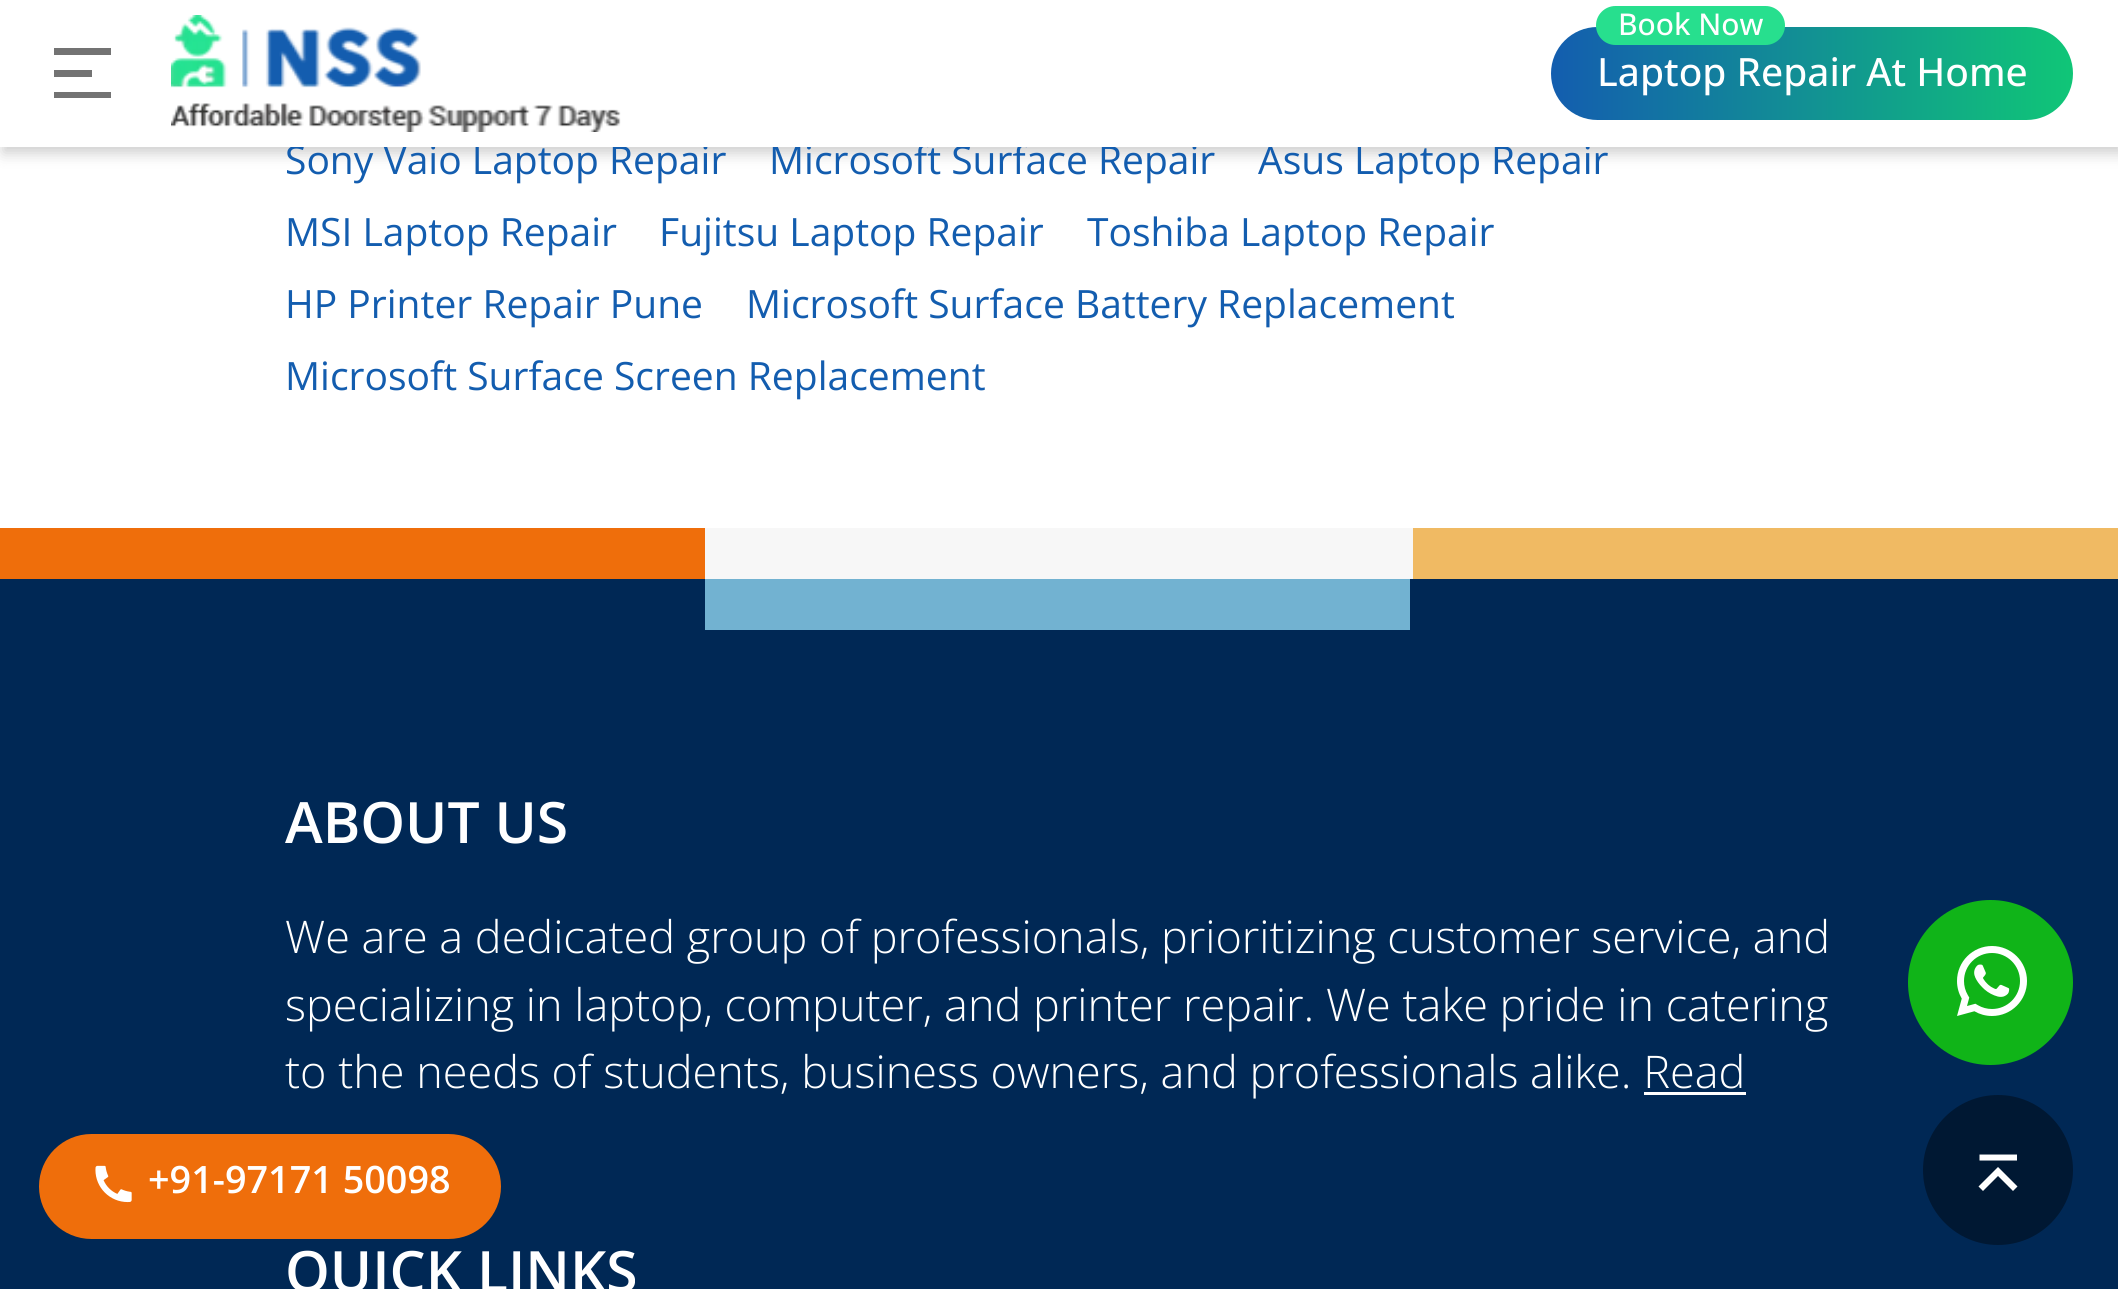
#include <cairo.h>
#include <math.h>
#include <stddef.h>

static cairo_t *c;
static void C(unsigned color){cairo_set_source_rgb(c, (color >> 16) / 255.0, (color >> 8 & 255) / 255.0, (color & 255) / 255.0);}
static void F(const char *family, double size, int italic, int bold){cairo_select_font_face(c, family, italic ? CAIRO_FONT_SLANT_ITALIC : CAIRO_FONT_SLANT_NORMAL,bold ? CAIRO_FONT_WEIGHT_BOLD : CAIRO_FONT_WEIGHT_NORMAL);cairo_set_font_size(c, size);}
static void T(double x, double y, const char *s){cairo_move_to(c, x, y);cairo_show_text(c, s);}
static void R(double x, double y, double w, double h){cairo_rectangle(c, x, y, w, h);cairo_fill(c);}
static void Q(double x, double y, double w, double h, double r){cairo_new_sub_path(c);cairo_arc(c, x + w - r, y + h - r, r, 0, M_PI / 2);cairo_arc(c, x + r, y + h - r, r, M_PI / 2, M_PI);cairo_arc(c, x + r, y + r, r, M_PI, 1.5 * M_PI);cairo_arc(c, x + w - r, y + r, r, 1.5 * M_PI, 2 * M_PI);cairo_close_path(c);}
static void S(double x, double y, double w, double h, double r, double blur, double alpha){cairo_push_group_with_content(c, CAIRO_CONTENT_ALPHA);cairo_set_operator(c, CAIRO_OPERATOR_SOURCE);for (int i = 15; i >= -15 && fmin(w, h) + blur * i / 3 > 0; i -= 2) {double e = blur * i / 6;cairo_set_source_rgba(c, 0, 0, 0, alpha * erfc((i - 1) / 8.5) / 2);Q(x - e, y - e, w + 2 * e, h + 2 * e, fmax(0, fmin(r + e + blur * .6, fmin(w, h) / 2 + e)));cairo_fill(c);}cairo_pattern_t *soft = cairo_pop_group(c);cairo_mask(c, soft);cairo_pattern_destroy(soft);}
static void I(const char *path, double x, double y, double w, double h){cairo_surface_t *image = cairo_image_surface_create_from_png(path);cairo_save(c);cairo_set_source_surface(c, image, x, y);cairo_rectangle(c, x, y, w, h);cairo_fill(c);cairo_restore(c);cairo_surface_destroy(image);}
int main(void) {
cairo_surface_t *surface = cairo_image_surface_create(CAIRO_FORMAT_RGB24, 2118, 1289);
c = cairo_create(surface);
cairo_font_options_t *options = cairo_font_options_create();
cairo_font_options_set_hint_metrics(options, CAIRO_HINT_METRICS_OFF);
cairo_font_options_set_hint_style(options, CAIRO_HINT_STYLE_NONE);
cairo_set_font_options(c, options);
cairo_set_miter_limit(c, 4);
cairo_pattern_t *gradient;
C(0xf7f7f7);
cairo_paint(c);
C(0xffffff);
R(0,147,2118,381);
C(0x000000);
S(3,6,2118,147,0,7.5,.2);
F("Open Sans",39,0,0);
C(0x135daf);
T(285,174,"Sony Vaio Laptop Repair");
T(769,174,"Microsoft Surface Repair");
T(1258,174,"Asus Laptop Repair");
C(0xffffff);
R(0,0,2118,147);
C(0x737373);
cairo_new_path(c);
cairo_move_to(c,54,48);
cairo_line_to(c,111,48);
cairo_line_to(c,111,55);
cairo_line_to(c,54,55);
cairo_close_path(c);
cairo_move_to(c,54,70);
cairo_line_to(c,92,70);
cairo_line_to(c,92,77);
cairo_line_to(c,54,77);
cairo_close_path(c);
cairo_move_to(c,54,92);
cairo_line_to(c,111,92);
cairo_line_to(c,111,98);
cairo_line_to(c,54,98);
cairo_close_path(c);
cairo_fill(c);
I("1.png",171,15,450,117);
gradient = cairo_pattern_create_linear(1551,74,2073,73);
cairo_pattern_add_color_stop_rgba(gradient,0,0.075,0.365,0.686,1);
cairo_pattern_add_color_stop_rgba(gradient,1,0.063,0.776,0.467,1);
cairo_set_source(c,gradient);
cairo_pattern_destroy(gradient);
Q(1551,27,522,93,46.5);
cairo_fill(c);
C(0x27df8e);
Q(1596,6,189,39,19.5);
cairo_fill(c);
F("Open Sans Medium",30,0,0);
C(0xffffff);
T(1618,35,"Book Now");
F("Open Sans Medium",39,0,0);
T(1597,86,"Laptop Repair At Home");
F("Open Sans",39,0,0);
C(0x135daf);
T(285,246,"MSI Laptop Repair");
T(659,246,"Fujitsu Laptop Repair");
T(1087,246,"Toshiba Laptop Repair");
T(285,318,"HP Printer Repair Pune");
T(746,318,"Microsoft Surface Battery Replacement");
T(285,390,"Microsoft Surface Screen Replacement");
gradient = cairo_pattern_create_linear(305,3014,1813,403);
cairo_pattern_add_color_stop_rgba(gradient,0,0,0.349,0.565,1);
cairo_pattern_add_color_stop_rgba(gradient,.35,0,0.157,0.333,1);
cairo_pattern_add_color_stop_rgba(gradient,1,0,0.157,0.333,1);
cairo_set_source(c,gradient);
cairo_pattern_destroy(gradient);
R(0,579,2118,710);
C(0xef6e0b);
R(0,528,705,51);
C(0xf0ba63);
R(1413,528,705,51);
C(0x72b2d1);
R(705,579,705,51);
F("Open Sans SemiBold",57,0,0);
C(0xffffff);
T(285,843,"ABOUT US");
F("Open Sans Light",45,0,0);
T(285,953,"We are a dedicated group of professionals, prioritizing customer service, and");
T(285,1021,"specializing in laptop, computer, and printer repair. We take pride in catering");
T(285,1088,"to the needs of students, business owners, and professionals alike. Read");
R(1644,1092,102,3);
F("Open Sans SemiBold",57,0,0);
T(285,1292,"QUICK LINKS");
C(0x10b418);
cairo_new_path(c);
cairo_arc(c,1990.5,982.5,82.5,0,2 * M_PI);
cairo_fill(c);
I("2.png",1957,946,70,70);
C(0xef6e0b);
Q(39,1134,462,105,52.5);
cairo_fill(c);
I("3.png",95,1165,37,38);
F("Open Sans SemiBold",37.75,0,0);
C(0xffffff);
T(148,1193,"+91-97171 50098");
C(0x001833);
cairo_new_path(c);
cairo_arc(c,1998,1170,75,0,2 * M_PI);
cairo_fill(c);
C(0xffffff);
cairo_new_path(c);
cairo_move_to(c,1998,1176);
cairo_line_to(c,2013,1191);
cairo_line_to(c,2017.5,1186.5);
cairo_line_to(c,1998,1167);
cairo_line_to(c,1978.5,1186.5);
cairo_line_to(c,1983,1191);
cairo_close_path(c);
cairo_move_to(c,1979.5,1154.5);
cairo_line_to(c,2017,1154.5);
cairo_line_to(c,2017,1160.5);
cairo_line_to(c,1979.5,1160.5);
cairo_close_path(c);
cairo_fill(c);
cairo_surface_write_to_png(surface, "o.png");
cairo_font_options_destroy(options);
cairo_destroy(c);
cairo_surface_destroy(surface);
return 0;
}
